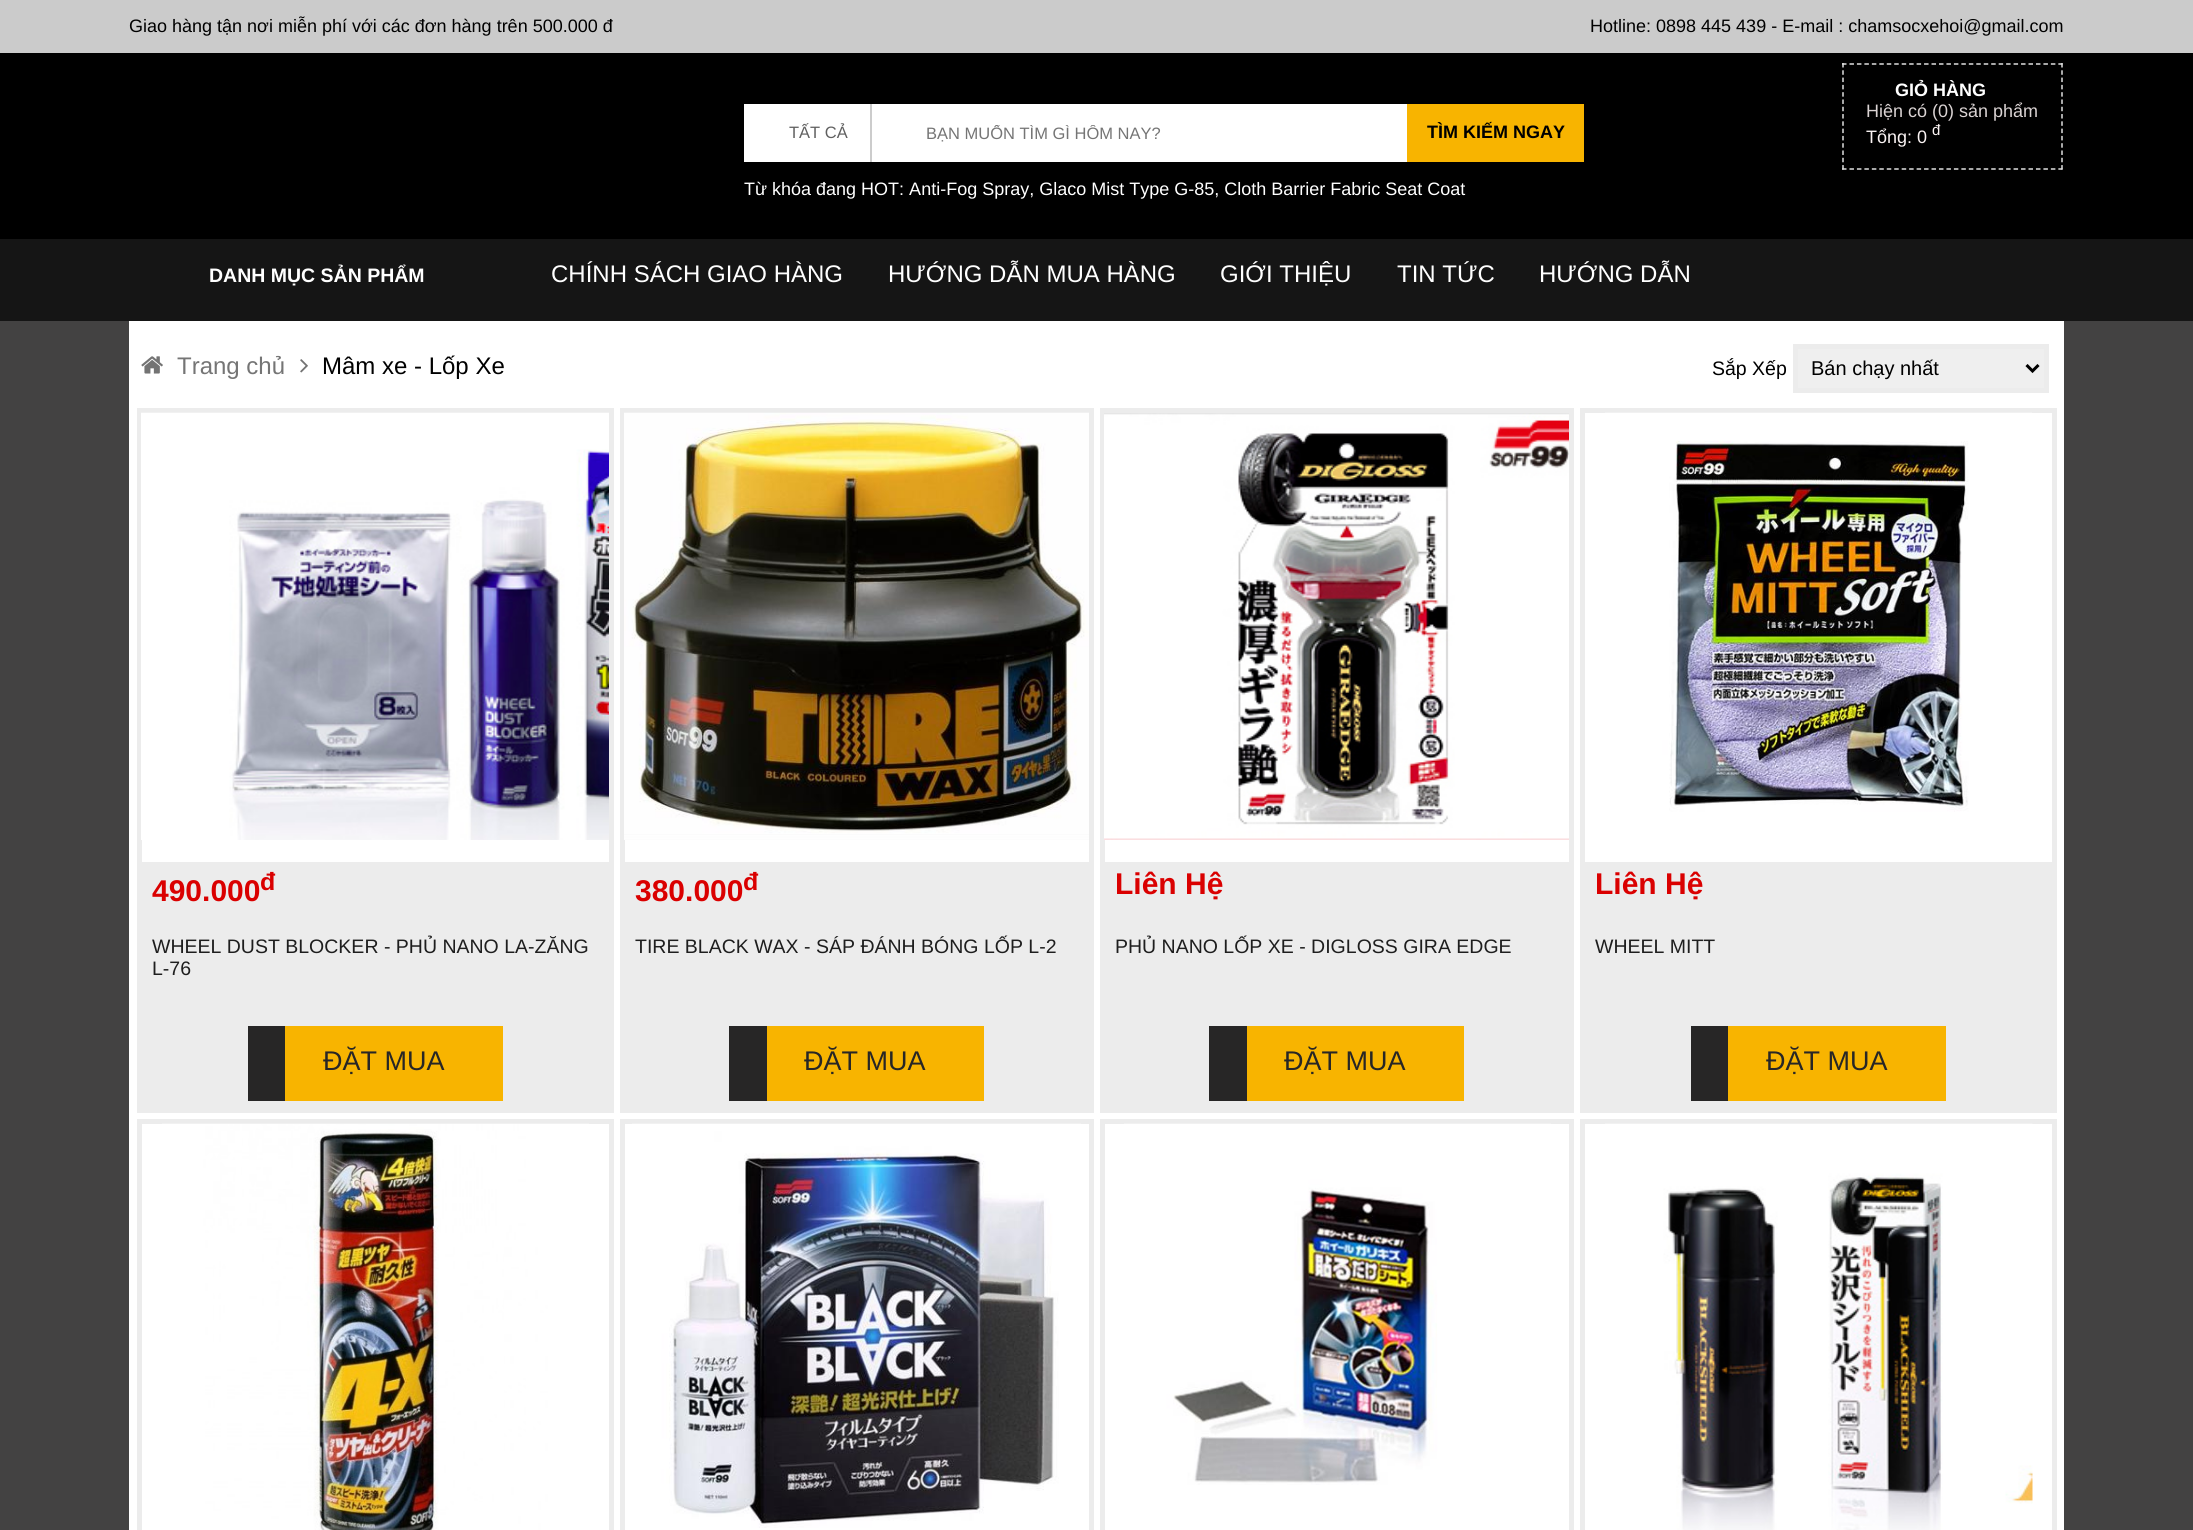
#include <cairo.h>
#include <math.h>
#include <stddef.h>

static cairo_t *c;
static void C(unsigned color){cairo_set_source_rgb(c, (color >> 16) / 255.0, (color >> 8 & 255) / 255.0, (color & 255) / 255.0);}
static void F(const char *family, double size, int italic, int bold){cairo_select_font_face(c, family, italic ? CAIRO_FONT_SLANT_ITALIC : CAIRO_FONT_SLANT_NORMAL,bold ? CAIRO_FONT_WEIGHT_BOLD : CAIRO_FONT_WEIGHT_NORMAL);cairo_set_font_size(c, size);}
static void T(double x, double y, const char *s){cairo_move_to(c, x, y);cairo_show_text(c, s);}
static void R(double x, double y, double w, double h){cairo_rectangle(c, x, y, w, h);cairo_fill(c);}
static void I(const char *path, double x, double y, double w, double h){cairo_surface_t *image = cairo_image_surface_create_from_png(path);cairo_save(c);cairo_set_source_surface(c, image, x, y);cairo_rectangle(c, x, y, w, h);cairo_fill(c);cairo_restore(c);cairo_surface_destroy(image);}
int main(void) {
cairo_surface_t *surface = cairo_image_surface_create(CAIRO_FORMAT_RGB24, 2193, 1530);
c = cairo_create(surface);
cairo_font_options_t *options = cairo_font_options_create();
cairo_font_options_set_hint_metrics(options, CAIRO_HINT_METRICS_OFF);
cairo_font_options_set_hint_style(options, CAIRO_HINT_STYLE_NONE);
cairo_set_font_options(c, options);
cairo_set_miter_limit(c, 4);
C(0x434242);
cairo_paint(c);
C(0xcbcbcb);
R(0,0,2193,53);
F("Liberation Sans",18,0,0);
C(0x000000);
T(129,32,"Giao hàng tận nơi miễn phí với các đơn hàng trên 500.000 đ");
T(1590,32,"Hotline: 0898 445 439 - E-mail : chamsocxehoi@gmail.com");
R(0,53,2193,186);
cairo_new_path(c);
cairo_move_to(c,1842,64);
cairo_line_to(c,2062.5,64);
C(0xdfdfdf);
cairo_set_line_width(c,1.5);
cairo_set_dash(c,(double[]){4.5,2.96},2,0);
cairo_stroke(c);
cairo_new_path(c);
cairo_move_to(c,2062,63);
cairo_line_to(c,2062,169.5);
cairo_set_dash(c,(double[]){4.5,2.79},2,0);
cairo_stroke(c);
cairo_new_path(c);
cairo_move_to(c,1842,169);
cairo_line_to(c,2062.5,169);
cairo_set_dash(c,(double[]){4.5,2.96},2,0);
cairo_stroke(c);
cairo_new_path(c);
cairo_move_to(c,1843,63);
cairo_line_to(c,1843,169.5);
cairo_set_dash(c,(double[]){4.5,2.79},2,0);
cairo_stroke(c);
F("Liberation Sans",18,0,1);
C(0xffffff);
T(1895,96,"GIỎ HÀNG");
F("Liberation Sans",18,0,0);
C(0xdad3d3);
T(1866,117,"Hiện có (0) sản phẩm");
C(0xfbf4f4);
T(1866,143,"Tổng: 0");
F("Liberation Sans",15,0,0);
T(1932,135,"đ");
C(0xffffff);
R(744,104,663,58);
C(0xcccccc);
R(870,104,2,58);
F("Liberation Sans",16.5,0,0);
C(0x606060);
T(789,138,"TẤT CẢ");
cairo_save(c);
cairo_rectangle(c,926,125,270,18);
cairo_clip(c);
C(0x757575);
T(926,139,"BẠN MUỐN TÌM GÌ HÔM NAY?");
cairo_restore(c);
C(0xf8b400);
R(1407,104,177,58);
F("Liberation Sans",18,0,1);
C(0x000000);
T(1427,138,"TÌM KIẾM NGAY");
F("Liberation Sans",18,0,0);
C(0xffffff);
T(744,195,"Từ khóa đang HOT: Anti-Fog Spray, Glaco Mist Type G-85, Cloth Barrier Fabric Seat Coat");
C(0x151515);
R(0,239,2193,82);
F("Liberation Sans",19.5,0,1);
C(0xffffff);
T(209,282,"DANH MỤC SẢN PHẨM");
F("Liberation Sans",24,0,0);
T(551,282,"CHÍNH SÁCH GIAO HÀNG");
T(888,282,"HƯỚNG DẪN MUA HÀNG");
T(1220,282,"GIỚI THIỆU");
T(1397,282,"TIN TỨC");
T(1539,282,"HƯỚNG DẪN");
R(129,321,1935,1209);
I("1.png",141,356,22,18);
C(0x757575);
T(177,374,"Trang chủ");
I("2.png",300,359,8,14);
C(0x000000);
T(322,374,"Mâm xe - Lốp Xe");
F("Liberation Sans",19.5,0,0);
T(1712,375,"Sắp Xếp");
C(0xefefef);
cairo_rectangle(c,1795.5,346.5,251,44);
cairo_fill_preserve(c);
C(0xececec);
cairo_set_line_width(c,5);
cairo_set_dash(c,NULL,0,0);
cairo_stroke(c);
cairo_new_path(c);
cairo_move_to(c,2026.5,365);
cairo_line_to(c,2032.5,371);
cairo_line_to(c,2038.5,365);
C(0x000000);
cairo_set_line_width(c,3);
cairo_stroke(c);
F("Liberation Sans",20,0,0);
T(1811,375,"Bán chạy nhất");
cairo_rectangle(c,139.5,410.5,472,454);
C(0xececec);
cairo_set_line_width(c,5);
cairo_stroke(c);
I("3.png",141,412,468,428);
R(137,867,477,246);
F("Liberation Sans",30,0,1);
C(0xda0000);
T(152,901,"490.000");
F("Liberation Sans",25,0,1);
T(260,890,"đ");
F("Liberation Sans",19.5,0,0);
C(0x1e1e1e);
T(152,953,"WHEEL DUST BLOCKER - PHỦ NANO LA-ZĂNG");
T(152,975,"L-76");
C(0xf8b400);
R(285,1026,218,75);
C(0x272626);
R(248,1026,37,75);
F("Liberation Sans",27,0,0);
T(323,1070,"ĐẶT MUA");
cairo_rectangle(c,622.5,410.5,469,454);
C(0xececec);
cairo_stroke(c);
I("4.png",624,412,465,428);
R(620,867,474,246);
F("Liberation Sans",30,0,1);
C(0xda0000);
T(635,901,"380.000");
F("Liberation Sans",25,0,1);
T(743,890,"đ");
F("Liberation Sans",19.5,0,0);
C(0x1e1e1e);
T(635,953,"TIRE BLACK WAX - SÁP ĐÁNH BÓNG LỐP L-2");
C(0xf8b400);
R(767,1026,217,75);
C(0x272626);
R(729,1026,38,75);
F("Liberation Sans",27,0,0);
T(804,1070,"ĐẶT MUA");
cairo_rectangle(c,1102.5,410.5,469,454);
C(0xececec);
cairo_stroke(c);
I("5.png",1104,413,465,427);
R(1100,867,474,246);
F("Liberation Sans",30,0,1);
C(0xda0000);
T(1115,894,"Liên Hệ");
F("Liberation Sans",19.5,0,0);
C(0x1e1e1e);
T(1115,953,"PHỦ NANO LỐP XE - DIGLOSS GIRA EDGE");
C(0xf8b400);
R(1247,1026,217,75);
C(0x272626);
R(1209,1026,38,75);
F("Liberation Sans",27,0,0);
T(1284,1070,"ĐẶT MUA");
cairo_rectangle(c,1582.5,410.5,472,454);
C(0xececec);
cairo_stroke(c);
I("6.png",1605,412,427,400);
R(1580,867,477,246);
F("Liberation Sans",30,0,1);
C(0xda0000);
T(1595,894,"Liên Hệ");
F("Liberation Sans",19.5,0,0);
C(0x1e1e1e);
T(1595,953,"WHEEL MITT");
C(0xf8b400);
R(1728,1026,218,75);
C(0x272626);
R(1691,1026,37,75);
F("Liberation Sans",27,0,0);
T(1766,1070,"ĐẶT MUA");
cairo_rectangle(c,139.5,1121.5,472,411);
C(0xececec);
cairo_stroke(c);
I("7.png",162,1123,427,407);
cairo_rectangle(c,622.5,1121.5,469,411);
cairo_stroke(c);
I("8.png",632,1123,449,405);
cairo_rectangle(c,1102.5,1121.5,469,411);
cairo_stroke(c);
I("9.png",1124,1123,427,362);
cairo_rectangle(c,1582.5,1121.5,472,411);
cairo_stroke(c);
I("10.png",1605,1123,428,407);
cairo_surface_write_to_png(surface, "o.png");
cairo_font_options_destroy(options);
cairo_destroy(c);
cairo_surface_destroy(surface);
return 0;
}
